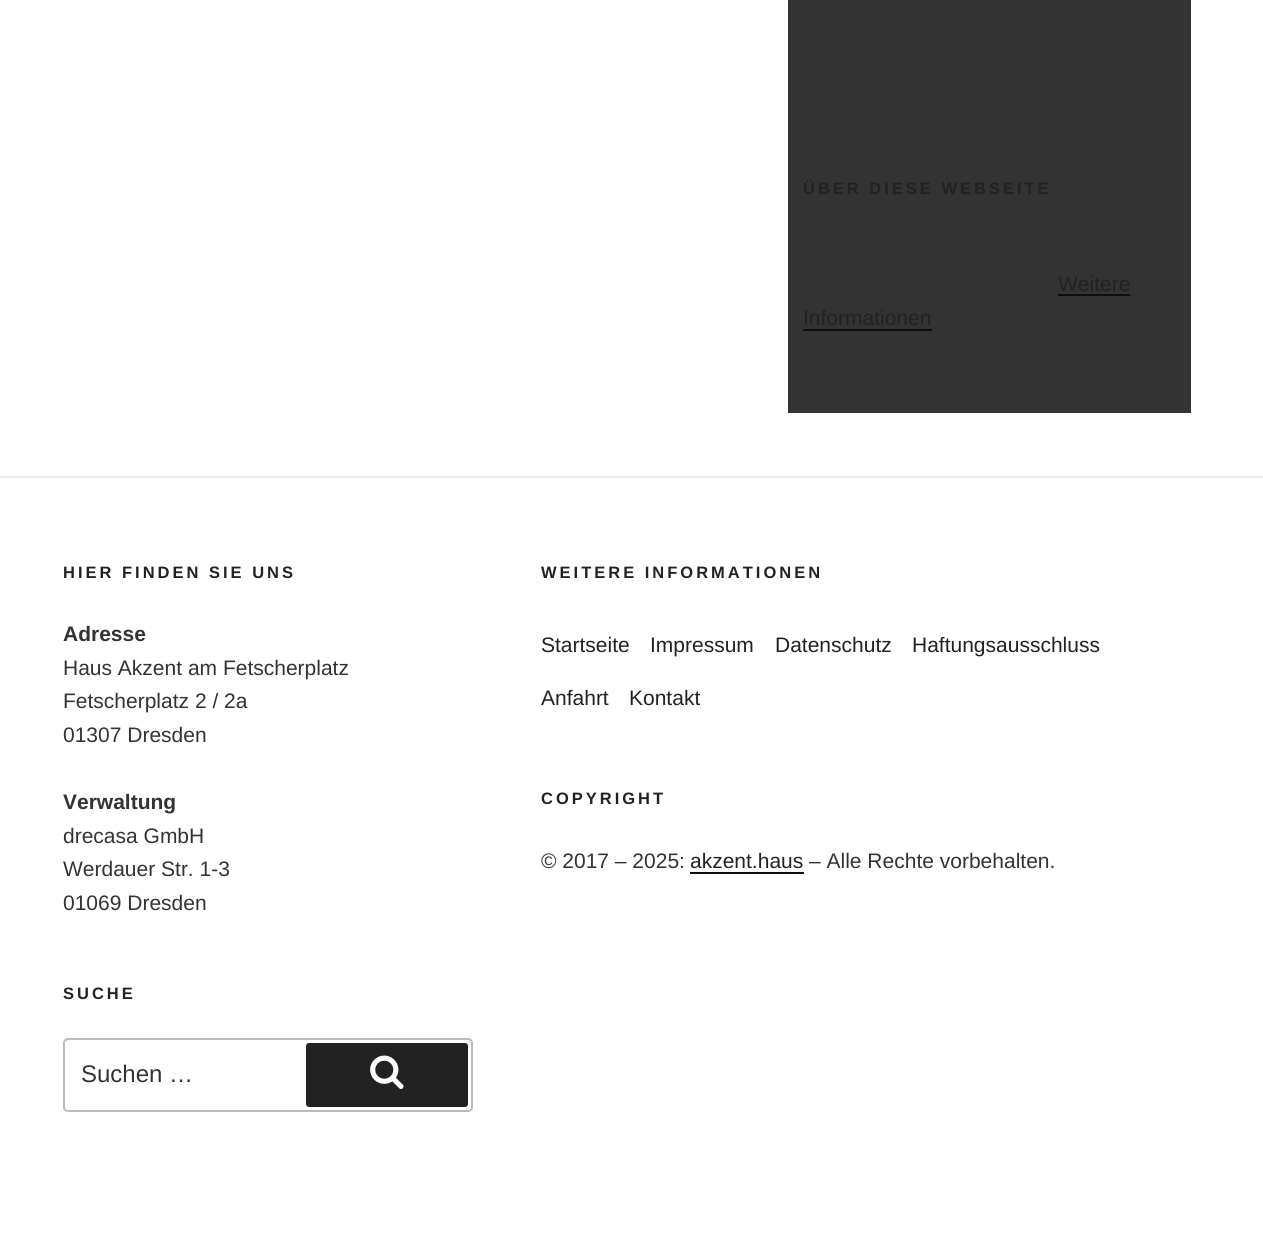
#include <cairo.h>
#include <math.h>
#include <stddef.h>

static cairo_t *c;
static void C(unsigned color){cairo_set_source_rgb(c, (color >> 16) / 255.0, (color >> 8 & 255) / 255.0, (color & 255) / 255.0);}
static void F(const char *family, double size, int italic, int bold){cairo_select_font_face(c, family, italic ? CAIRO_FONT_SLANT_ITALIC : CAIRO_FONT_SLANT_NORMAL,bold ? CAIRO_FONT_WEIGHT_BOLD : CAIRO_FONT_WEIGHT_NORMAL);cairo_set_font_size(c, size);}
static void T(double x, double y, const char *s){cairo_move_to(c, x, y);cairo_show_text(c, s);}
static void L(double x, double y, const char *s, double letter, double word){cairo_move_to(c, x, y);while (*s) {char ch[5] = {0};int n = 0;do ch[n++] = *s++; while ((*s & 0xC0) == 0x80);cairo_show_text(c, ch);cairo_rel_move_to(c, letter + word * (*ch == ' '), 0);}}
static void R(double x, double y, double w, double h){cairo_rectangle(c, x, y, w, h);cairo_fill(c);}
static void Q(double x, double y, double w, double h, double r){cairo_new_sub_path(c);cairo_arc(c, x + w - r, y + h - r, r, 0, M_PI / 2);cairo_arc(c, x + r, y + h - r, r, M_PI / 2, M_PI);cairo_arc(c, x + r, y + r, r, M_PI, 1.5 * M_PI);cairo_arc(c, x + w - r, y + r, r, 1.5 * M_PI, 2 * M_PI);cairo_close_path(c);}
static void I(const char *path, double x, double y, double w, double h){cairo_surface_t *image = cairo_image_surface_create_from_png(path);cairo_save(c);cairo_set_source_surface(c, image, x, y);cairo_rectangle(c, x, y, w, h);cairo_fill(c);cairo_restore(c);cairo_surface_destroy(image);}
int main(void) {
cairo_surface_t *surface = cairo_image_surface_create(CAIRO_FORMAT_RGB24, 1263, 1247);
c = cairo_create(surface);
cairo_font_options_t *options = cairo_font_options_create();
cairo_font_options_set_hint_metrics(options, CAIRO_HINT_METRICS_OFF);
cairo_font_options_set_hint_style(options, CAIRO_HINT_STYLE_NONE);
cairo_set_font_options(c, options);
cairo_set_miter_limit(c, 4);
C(0xffffff);
cairo_paint(c);
C(0x333333);
R(788,0,403,413);
F("Liberation Sans",16.5,0,1);
C(0x222222);
L(803,194,"ÜBER DIESE WEBSEITE",3,0);
F("Liberation Sans",21,0,0);
T(1058,291,"Weitere");
C(0x0f0f0f);
R(1058,294,72,2);
C(0x222222);
T(803,325,"Informationen");
C(0x0f0f0f);
R(803,329,129,2);
C(0xeeeeee);
R(0,476,1263,2);
F("Liberation Sans",16.5,0,1);
C(0x222222);
L(63,578,"HIER FINDEN SIE UNS",3,0);
F("Liberation Sans",21,0,1);
C(0x333333);
T(63,641,"Adresse");
F("Liberation Sans",21,0,0);
T(63,675,"Haus Akzent am Fetscherplatz");
T(63,708,"Fetscherplatz 2 / 2a");
T(63,742,"01307 Dresden");
F("Liberation Sans",21,0,1);
T(63,809,"Verwaltung");
F("Liberation Sans",21,0,0);
T(63,843,"drecasa GmbH");
T(63,876,"Werdauer Str. 1-3");
T(63,910,"01069 Dresden");
F("Liberation Sans",16.5,0,1);
C(0x222222);
L(63,999,"SUCHE",3,0);
Q(64,1039,408,72,4);
C(0xbbbbbb);
cairo_stroke(c);
F("Liberation Sans",24,0,0);
C(0x333333);
T(81,1082,"Suchen …");
C(0x222222);
Q(306,1043,162,64,3);
cairo_fill(c);
I("1.png",370,1055,34,34);
F("Liberation Sans",16.5,0,1);
L(541,578,"WEITERE INFORMATIONEN",3,0);
F("Liberation Sans",21,0,0);
T(541,652,"Startseite");
T(650,652,"Impressum");
T(775,652,"Datenschutz");
T(912,652,"Haftungsausschluss");
T(541,705,"Anfahrt");
T(629,705,"Kontakt");
F("Liberation Sans",16.5,0,1);
L(541,804,"COPYRIGHT",3,0);
F("Liberation Sans",21,0,0);
C(0x333333);
T(541,868,"© 2017 – 2025:");
C(0x222222);
T(690,868,"akzent.haus");
C(0x0f0f0f);
R(690,872,114,2);
C(0x333333);
T(809,868,"– Alle Rechte vorbehalten.");
cairo_surface_write_to_png(surface, "o.png");
cairo_font_options_destroy(options);
cairo_destroy(c);
cairo_surface_destroy(surface);
return 0;
}
